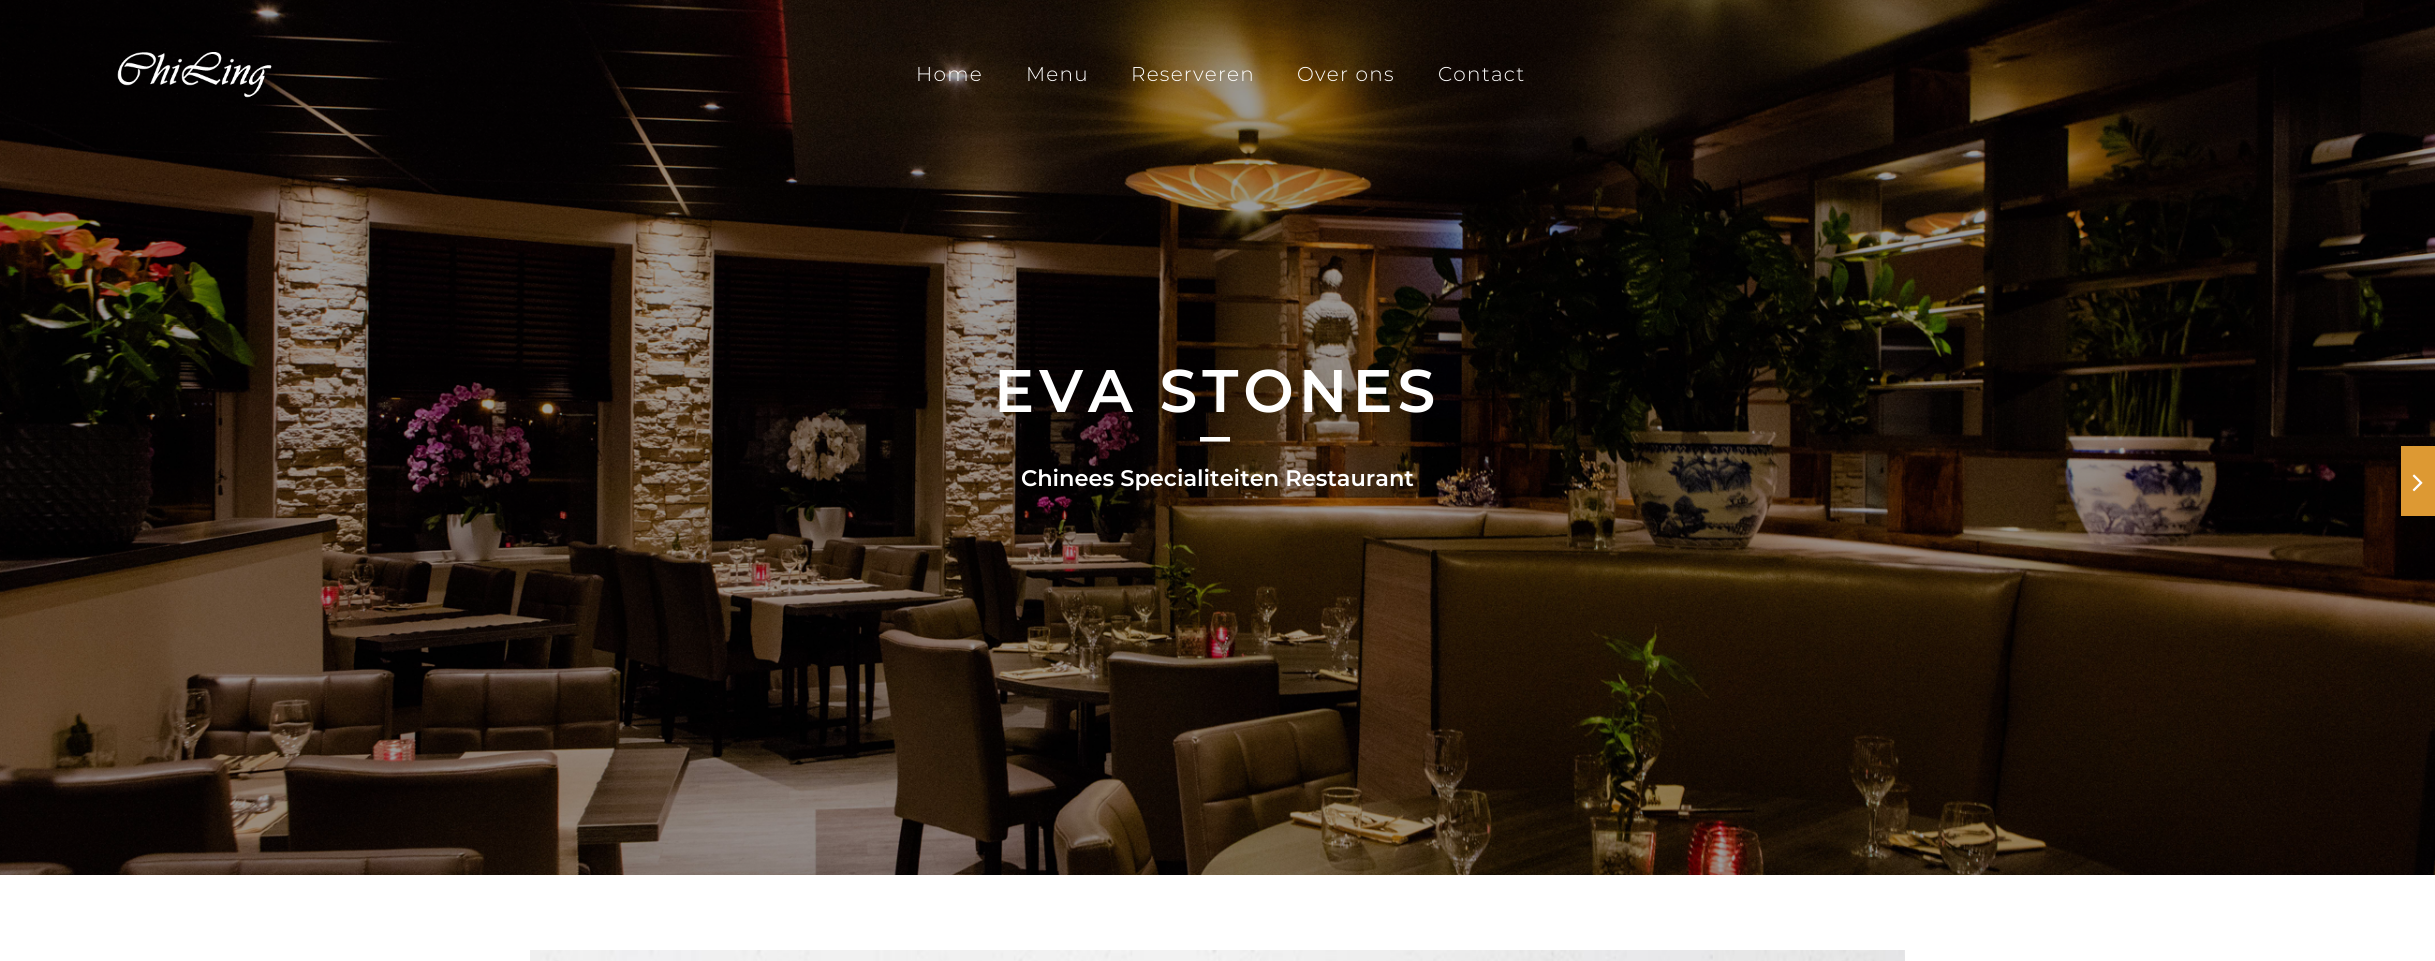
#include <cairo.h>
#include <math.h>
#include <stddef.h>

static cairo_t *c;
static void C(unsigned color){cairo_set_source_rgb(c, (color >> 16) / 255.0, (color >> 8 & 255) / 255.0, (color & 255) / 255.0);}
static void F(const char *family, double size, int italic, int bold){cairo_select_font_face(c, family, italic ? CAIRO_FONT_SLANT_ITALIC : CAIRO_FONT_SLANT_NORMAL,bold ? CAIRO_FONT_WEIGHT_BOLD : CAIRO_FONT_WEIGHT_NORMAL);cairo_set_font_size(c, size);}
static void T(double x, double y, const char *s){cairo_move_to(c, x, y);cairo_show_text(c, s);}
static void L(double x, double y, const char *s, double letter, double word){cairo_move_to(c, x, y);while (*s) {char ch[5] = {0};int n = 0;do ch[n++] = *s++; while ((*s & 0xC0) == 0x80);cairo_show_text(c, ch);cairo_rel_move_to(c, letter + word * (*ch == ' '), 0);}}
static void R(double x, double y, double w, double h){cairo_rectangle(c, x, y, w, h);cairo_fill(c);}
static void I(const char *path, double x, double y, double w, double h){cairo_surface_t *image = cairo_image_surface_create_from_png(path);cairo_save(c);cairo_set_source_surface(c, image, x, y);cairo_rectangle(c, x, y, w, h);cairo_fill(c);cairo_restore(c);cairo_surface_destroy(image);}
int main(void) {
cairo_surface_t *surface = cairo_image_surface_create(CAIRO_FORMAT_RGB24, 2435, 961);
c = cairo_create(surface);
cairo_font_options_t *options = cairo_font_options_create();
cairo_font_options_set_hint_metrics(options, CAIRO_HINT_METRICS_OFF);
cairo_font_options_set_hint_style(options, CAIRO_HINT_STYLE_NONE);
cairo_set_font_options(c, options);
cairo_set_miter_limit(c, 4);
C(0xffffff);
cairo_paint(c);
I("2.png",0,0,2435,875);
I("1.png",117,52,155,46);
F("Montserrat Light",20,0,0);
C(0xffffff);
L(916,81,"Home",1.25,0);
L(1026,81,"Menu",1.25,0);
L(1131,81,"Reserveren",1.25,0);
L(1297,81,"Over ons",1.25,0);
L(1438,81,"Contact",1.25,0);
F("Montserrat SemiBold",60,0,0);
L(994,412,"EVA STONES",5,0);
L(1200,437,"_",5,0);
F("Montserrat SemiBold",22.5,0,0);
T(1021,486,"Chinees Specialiteiten Restaurant");
C(0xdd9933);
R(2401,446,34,70);
I("3.png",2412,474,11,18);
I("4.png",530,950,1375,11);
cairo_surface_write_to_png(surface, "o.png");
cairo_font_options_destroy(options);
cairo_destroy(c);
cairo_surface_destroy(surface);
return 0;
}
